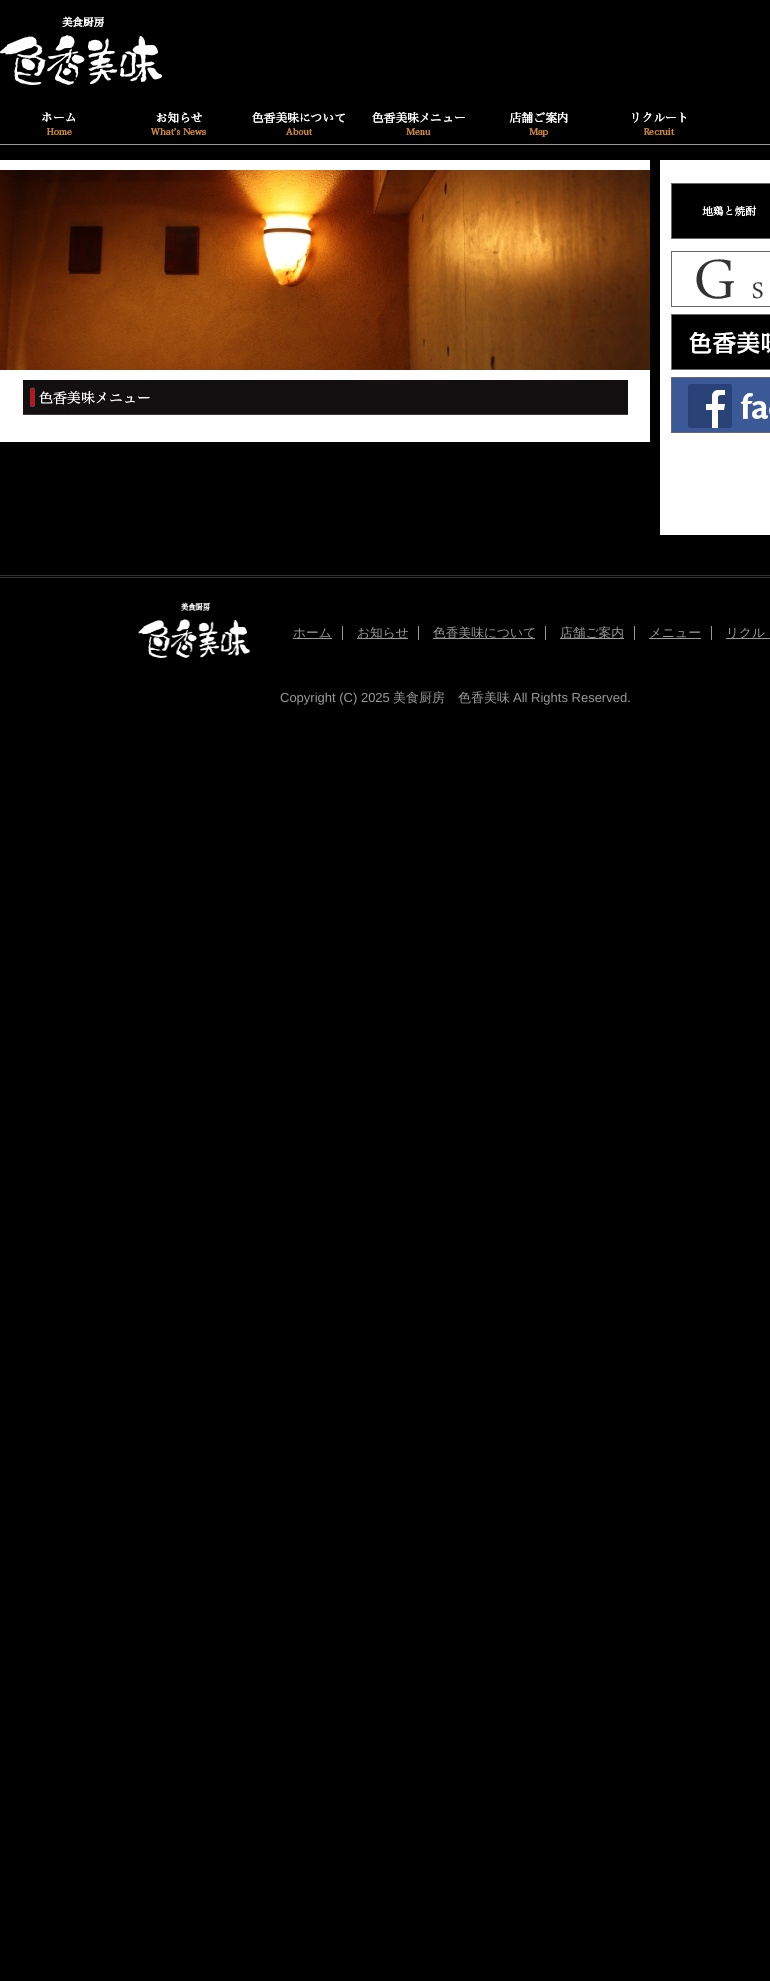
#include <cairo.h>
#include <math.h>
#include <stddef.h>

static cairo_t *c;
static void C(unsigned color){cairo_set_source_rgb(c, (color >> 16) / 255.0, (color >> 8 & 255) / 255.0, (color & 255) / 255.0);}
static void F(const char *family, double size, int italic, int bold){cairo_select_font_face(c, family, italic ? CAIRO_FONT_SLANT_ITALIC : CAIRO_FONT_SLANT_NORMAL,bold ? CAIRO_FONT_WEIGHT_BOLD : CAIRO_FONT_WEIGHT_NORMAL);cairo_set_font_size(c, size);}
static void T(double x, double y, const char *s){cairo_move_to(c, x, y);cairo_show_text(c, s);}
static void R(double x, double y, double w, double h){cairo_rectangle(c, x, y, w, h);cairo_fill(c);}
static void I(const char *path, double x, double y, double w, double h){cairo_surface_t *image = cairo_image_surface_create_from_png(path);cairo_save(c);cairo_set_source_surface(c, image, x, y);cairo_rectangle(c, x, y, w, h);cairo_fill(c);cairo_restore(c);cairo_surface_destroy(image);}
int main(void) {
cairo_surface_t *surface = cairo_image_surface_create(CAIRO_FORMAT_RGB24, 770, 1981);
c = cairo_create(surface);
cairo_font_options_t *options = cairo_font_options_create();
cairo_font_options_set_hint_metrics(options, CAIRO_HINT_METRICS_OFF);
cairo_font_options_set_hint_style(options, CAIRO_HINT_STYLE_NONE);
cairo_set_font_options(c, options);
cairo_set_miter_limit(c, 4);
C(0x000000);
cairo_paint(c);
I("1.png",0,16,162,69);
C(0x999999);
R(0,144,770,1);
I("2.png",40,112,35,23);
I("3.png",151,112,55,23);
I("4.png",252,112,93,23);
I("5.png",372,112,93,27);
I("6.png",509,112,59,25);
I("7.png",632,112,54,23);
C(0xffffff);
R(0,160,650,282);
I("8.png",0,170,650,200);
I("9.png",23,380,605,35);
R(660,160,110,375);
I("10.png",671,183,99,56);
I("11.png",671,251,99,56);
I("12.png",671,314,99,56);
I("13.png",671,377,99,56);
C(0x353434);
R(0,575,770,1);
R(0,577,770,1);
I("14.png",138,602,113,56);
C(0x999999);
R(293,638,39,1);
F("WenQuanYi Zen Hei Medium",12.75,0,0);
T(293,637,"ホーム");
R(342,626,1,14);
R(357,638,51,1);
T(357,637,"お知らせ");
R(418,626,1,14);
R(433,638,102,1);
T(433,637,"色香美味について");
R(545,626,1,14);
R(560,638,64,1);
T(560,637,"店舗ご案内");
R(634,626,1,14);
T(649,637,"メニュー");
R(711,626,1,14);
R(649,638,52,1);
R(726,638,44,1);
T(726,637,"リクル");
F("Liberation Sans",13,0,0);
T(280,702,"Copyright (C) 2025");
F("WenQuanYi Zen Hei Medium",13,0,0);
T(393,702,"美食厨房　色香美味");
F("Liberation Sans",13,0,0);
T(513,702,"All Rights Reserved.");
cairo_surface_write_to_png(surface, "o.png");
cairo_font_options_destroy(options);
cairo_destroy(c);
cairo_surface_destroy(surface);
return 0;
}
